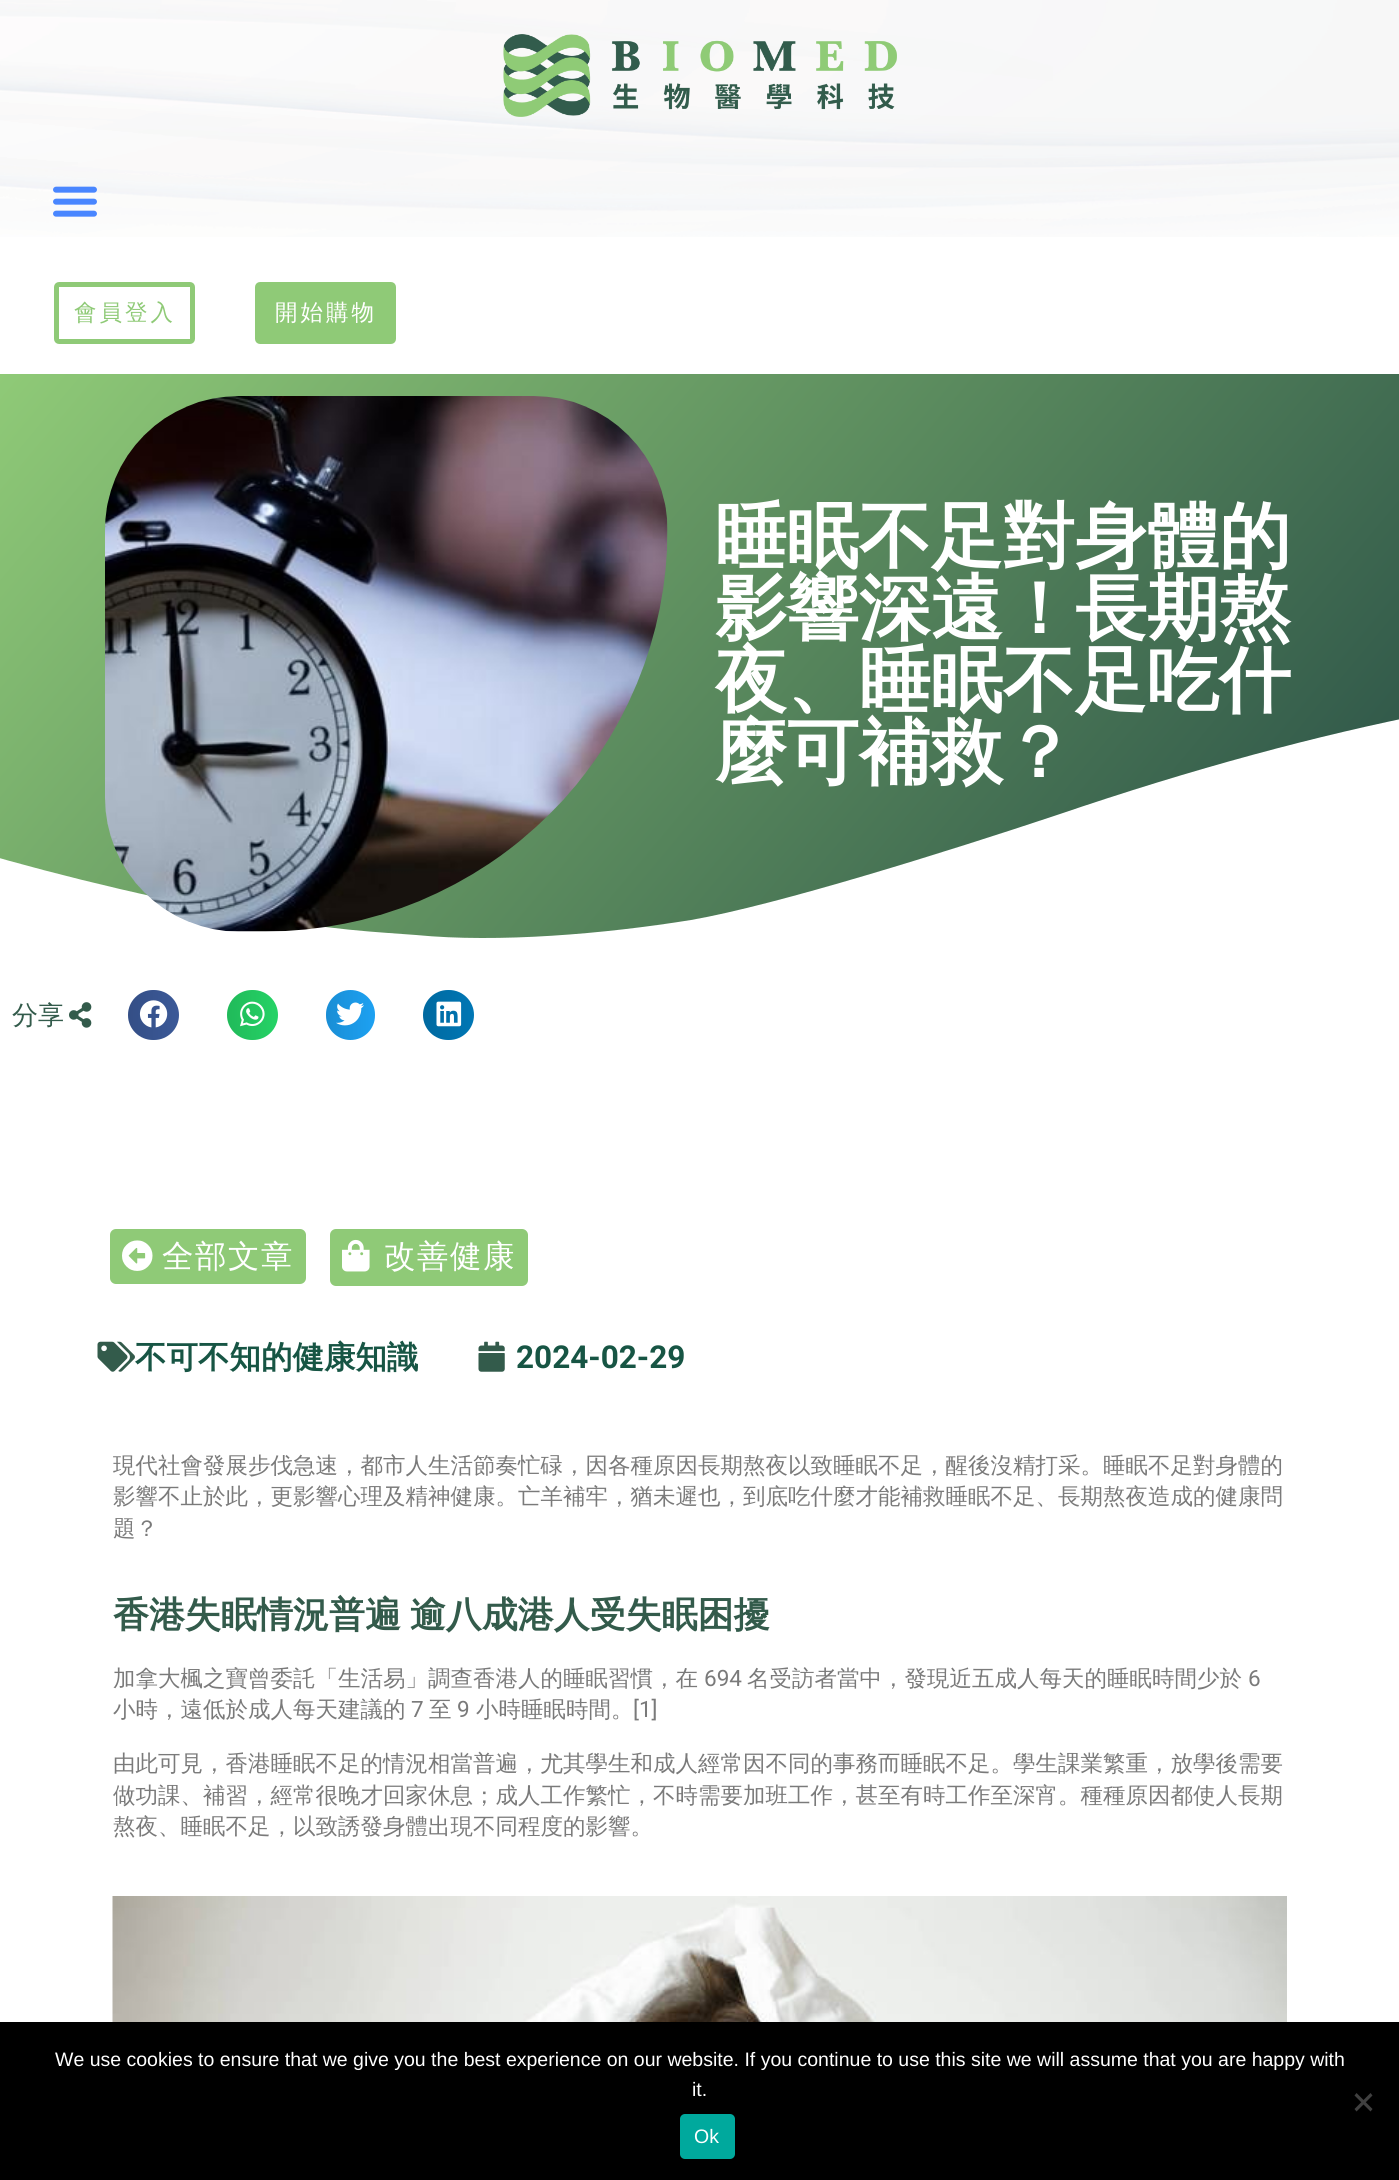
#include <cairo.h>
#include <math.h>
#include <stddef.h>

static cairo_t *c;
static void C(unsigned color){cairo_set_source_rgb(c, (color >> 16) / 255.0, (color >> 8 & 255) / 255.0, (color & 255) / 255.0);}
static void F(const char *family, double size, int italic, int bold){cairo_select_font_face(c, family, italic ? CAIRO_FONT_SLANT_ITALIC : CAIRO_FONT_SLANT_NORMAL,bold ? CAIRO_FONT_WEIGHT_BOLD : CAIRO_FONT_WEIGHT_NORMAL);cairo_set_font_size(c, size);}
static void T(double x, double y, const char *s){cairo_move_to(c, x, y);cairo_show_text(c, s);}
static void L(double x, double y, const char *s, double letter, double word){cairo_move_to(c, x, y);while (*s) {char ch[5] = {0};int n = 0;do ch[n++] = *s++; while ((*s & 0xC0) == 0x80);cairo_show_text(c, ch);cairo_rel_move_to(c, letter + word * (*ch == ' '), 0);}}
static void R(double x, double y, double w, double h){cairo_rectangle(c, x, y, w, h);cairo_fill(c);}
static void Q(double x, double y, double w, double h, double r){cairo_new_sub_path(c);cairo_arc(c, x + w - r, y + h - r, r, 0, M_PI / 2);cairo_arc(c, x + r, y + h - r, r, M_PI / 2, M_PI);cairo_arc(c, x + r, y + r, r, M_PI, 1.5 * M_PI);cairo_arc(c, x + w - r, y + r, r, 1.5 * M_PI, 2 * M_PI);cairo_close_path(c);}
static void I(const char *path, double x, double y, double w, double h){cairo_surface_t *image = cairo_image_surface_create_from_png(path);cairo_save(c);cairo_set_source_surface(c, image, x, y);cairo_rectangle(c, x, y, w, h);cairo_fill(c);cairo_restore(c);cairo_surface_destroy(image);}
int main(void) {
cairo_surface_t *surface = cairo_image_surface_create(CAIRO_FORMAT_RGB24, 1399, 2180);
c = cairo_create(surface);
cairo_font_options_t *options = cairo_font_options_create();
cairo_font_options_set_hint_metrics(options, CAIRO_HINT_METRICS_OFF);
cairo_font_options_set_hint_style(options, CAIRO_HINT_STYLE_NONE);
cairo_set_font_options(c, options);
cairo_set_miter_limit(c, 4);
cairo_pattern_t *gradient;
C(0xffffff);
cairo_paint(c);
I("1.png",0,0,1399,237);
I("2.png",503,34,394,83);
I("3.png",53,186,44,31);
Q(56.5,284.5,136,57,2.5);
C(0x8fca77);
cairo_set_line_width(c,5);
cairo_stroke(c);
F("WenQuanYi Zen Hei Medium",22.5,0,0);
L(74,320,"會員登入",3,0);
Q(257.5,284.5,136,57,2.5);
cairo_fill_preserve(c);
cairo_stroke(c);
C(0xffffff);
L(275,320,"開始購物",3,0);
gradient = cairo_pattern_create_linear(146,199,1253,1128);
cairo_pattern_add_color_stop_rgba(gradient,0,0.561,0.792,0.467,1);
cairo_pattern_add_color_stop_rgba(gradient,.89,0.2,0.357,0.294,1);
cairo_set_source(c,gradient);
cairo_pattern_destroy(gradient);
R(0,374,1399,564);
C(0xffffff);
cairo_new_path(c);
cairo_move_to(c,416,935);
cairo_curve_to(c,498,943,604,934,691,920);
cairo_curve_to(c,777,905,949,851,1057,815);
cairo_curve_to(c,1333,721,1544,685,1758,670);
cairo_curve_to(c,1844,664,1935,660,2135,677);
cairo_curve_to(c,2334,695,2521,752,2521,752);
cairo_line_to(c,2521,954);
cairo_line_to(c,-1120,954);
cairo_line_to(c,-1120,866);
cairo_curve_to(c,-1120,866,-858,770,-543,776);
cairo_curve_to(c,-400,779,-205,796,-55,842);
cairo_curve_to(c,22,866,135,895,235,913);
cairo_curve_to(c,334,931,379,932,416,935);
cairo_close_path(c);
cairo_fill(c);
I("4.png",105,396,563,536);
F("WenQuanYi Zen Hei",72,0,1);
T(715,561,"睡眠不足對身體的");
T(715,633,"影響深遠！長期熬");
T(715,705,"夜、睡眠不足吃什");
T(715,777,"麼可補救？");
F("WenQuanYi Zen Hei Medium",26,0,0);
C(0x335b4b);
T(12,1024,"分享");
I("5.png",69,1002,23,26);
C(0x3b5998);
Q(128,990,51,50,25);
cairo_fill(c);
gradient = cairo_pattern_create_linear(128,1015,179,1015);
cairo_pattern_add_color_stop_rgba(gradient,0,0,0,0,.12);
cairo_pattern_add_color_stop_rgba(gradient,1,0,0,0,0);
cairo_set_source(c,gradient);
cairo_pattern_destroy(gradient);
Q(128,990,51,50,25);
cairo_fill(c);
I("6.png",139,1000,29,28);
C(0x25d366);
Q(227,990,51,50,25);
cairo_fill(c);
gradient = cairo_pattern_create_linear(227,1015,278,1015);
cairo_pattern_add_color_stop_rgba(gradient,0,0,0,0,.12);
cairo_pattern_add_color_stop_rgba(gradient,1,0,0,0,0);
cairo_set_source(c,gradient);
cairo_pattern_destroy(gradient);
Q(227,990,51,50,25);
cairo_fill(c);
I("7.png",240,1001,25,26);
C(0x1da1f2);
Q(326,990,49,50,24.5);
cairo_fill(c);
gradient = cairo_pattern_create_linear(326,1015,375,1015);
cairo_pattern_add_color_stop_rgba(gradient,0,0,0,0,.12);
cairo_pattern_add_color_stop_rgba(gradient,1,0,0,0,0);
cairo_set_source(c,gradient);
cairo_pattern_destroy(gradient);
Q(326,990,49,50,24.5);
cairo_fill(c);
I("8.png",336,1002,28,24);
C(0x0077b5);
Q(423,990,51,50,25);
cairo_fill(c);
gradient = cairo_pattern_create_linear(423,1015,474,1015);
cairo_pattern_add_color_stop_rgba(gradient,0,0,0,0,.12);
cairo_pattern_add_color_stop_rgba(gradient,1,0,0,0,0);
cairo_set_source(c,gradient);
cairo_pattern_destroy(gradient);
Q(423,990,51,50,25);
cairo_fill(c);
I("9.png",436,1001,26,26);
C(0x8fca77);
Q(110,1229,196,55,6);
cairo_fill(c);
I("10.png",122,1240,31,31);
F("WenQuanYi Zen Hei Medium",31.5,0,0);
C(0xffffff);
L(162,1267,"全部文章",1.5,0);
C(0x8fca77);
Q(330,1229,198,57,6);
cairo_fill(c);
I("11.png",342,1239,28,33);
C(0xffffff);
L(384,1267,"改善健康",1.5,0);
I("12.png",97,1341,38,31);
F("WenQuanYi Zen Hei",31.5,0,1);
C(0x175544);
T(135,1368,"不可不知的健康知識");
I("13.png",478,1341,27,31);
F("Roboto",31.5,0,1);
T(516,1368,"2024-02-29");
F("WenQuanYi Zen Hei Medium",22.5,0,0);
C(0x7a7a7a);
T(113,1473,"現代社會發展步伐急速，都市人生活節奏忙碌，因各種原因長期熬夜以致睡眠不足，醒後沒精打采。睡眠不足對身體的");
T(113,1504,"影響不止於此，更影響心理及精神健康。亡羊補牢，猶未遲也，到底吃什麼才能補救睡眠不足、長期熬夜造成的健康問");
T(113,1536,"題？");
F("WenQuanYi Zen Hei",36,0,1);
C(0x335b4b);
L(113,1627,"香港失眠情況普遍 逾八成港人受失眠困擾",0,-2);
F("WenQuanYi Zen Hei Medium",22.5,0,0);
C(0x7a7a7a);
T(113,1686,"加拿大楓之寶曾委託「生活易」調查香港人的睡眠習慣，在");
F("Roboto",22.5,0,0);
T(704,1686,"694");
F("WenQuanYi Zen Hei Medium",22.5,0,0);
T(747,1686,"名受訪者當中，發現近五成人每天的睡眠時間少於");
F("Roboto",22.5,0,0);
T(1248,1686,"6");
F("WenQuanYi Zen Hei Medium",22.5,0,0);
T(113,1717,"小時，遠低於成人每天建議的");
F("Roboto",22.5,0,0);
T(411,1717,"7");
F("WenQuanYi Zen Hei Medium",22.5,0,0);
T(429,1717,"至");
F("Roboto",22.5,0,0);
T(457,1717,"9");
F("WenQuanYi Zen Hei Medium",22.5,0,0);
T(476,1717,"小時睡眠時間。");
F("Roboto",22.5,0,0);
T(633,1717,"[1]");
F("WenQuanYi Zen Hei Medium",22.5,0,0);
T(113,1771,"由此可見，香港睡眠不足的情況相當普遍，尤其學生和成人經常因不同的事務而睡眠不足。學生課業繁重，放學後需要");
T(113,1803,"做功課、補習，經常很晚才回家休息；成人工作繁忙，不時需要加班工作，甚至有時工作至深宵。種種原因都使人長期");
T(113,1834,"熬夜、睡眠不足，以致誘發身體出現不同程度的影響。");
I("14.png",112,1896,1175,126);
C(0x000000);
R(0,2022,1399,158);
F("Liberation Sans",19.5,0,0);
C(0xffffff);
T(55,2066,"We use cookies to ensure that we give you the best experience on our website. If you continue to use this site we will assume that you are happy with");
T(692,2096,"it.");
C(0x404040);
cairo_new_path(c);
cairo_move_to(c,1370.5,2093);
cairo_line_to(c,1372.5,2095.5);
cairo_line_to(c,1356.5,2111.5);
cairo_line_to(c,1354.5,2109);
cairo_close_path(c);
cairo_fill(c);
cairo_new_path(c);
cairo_move_to(c,1354.5,2095.5);
cairo_line_to(c,1356.5,2093);
cairo_line_to(c,1372.5,2109);
cairo_line_to(c,1370.5,2111.5);
cairo_close_path(c);
cairo_fill(c);
C(0x00a99d);
Q(680,2114,55,45,5);
cairo_fill(c);
C(0xffffff);
T(694,2143,"Ok");
cairo_surface_write_to_png(surface, "o.png");
cairo_font_options_destroy(options);
cairo_destroy(c);
cairo_surface_destroy(surface);
return 0;
}
